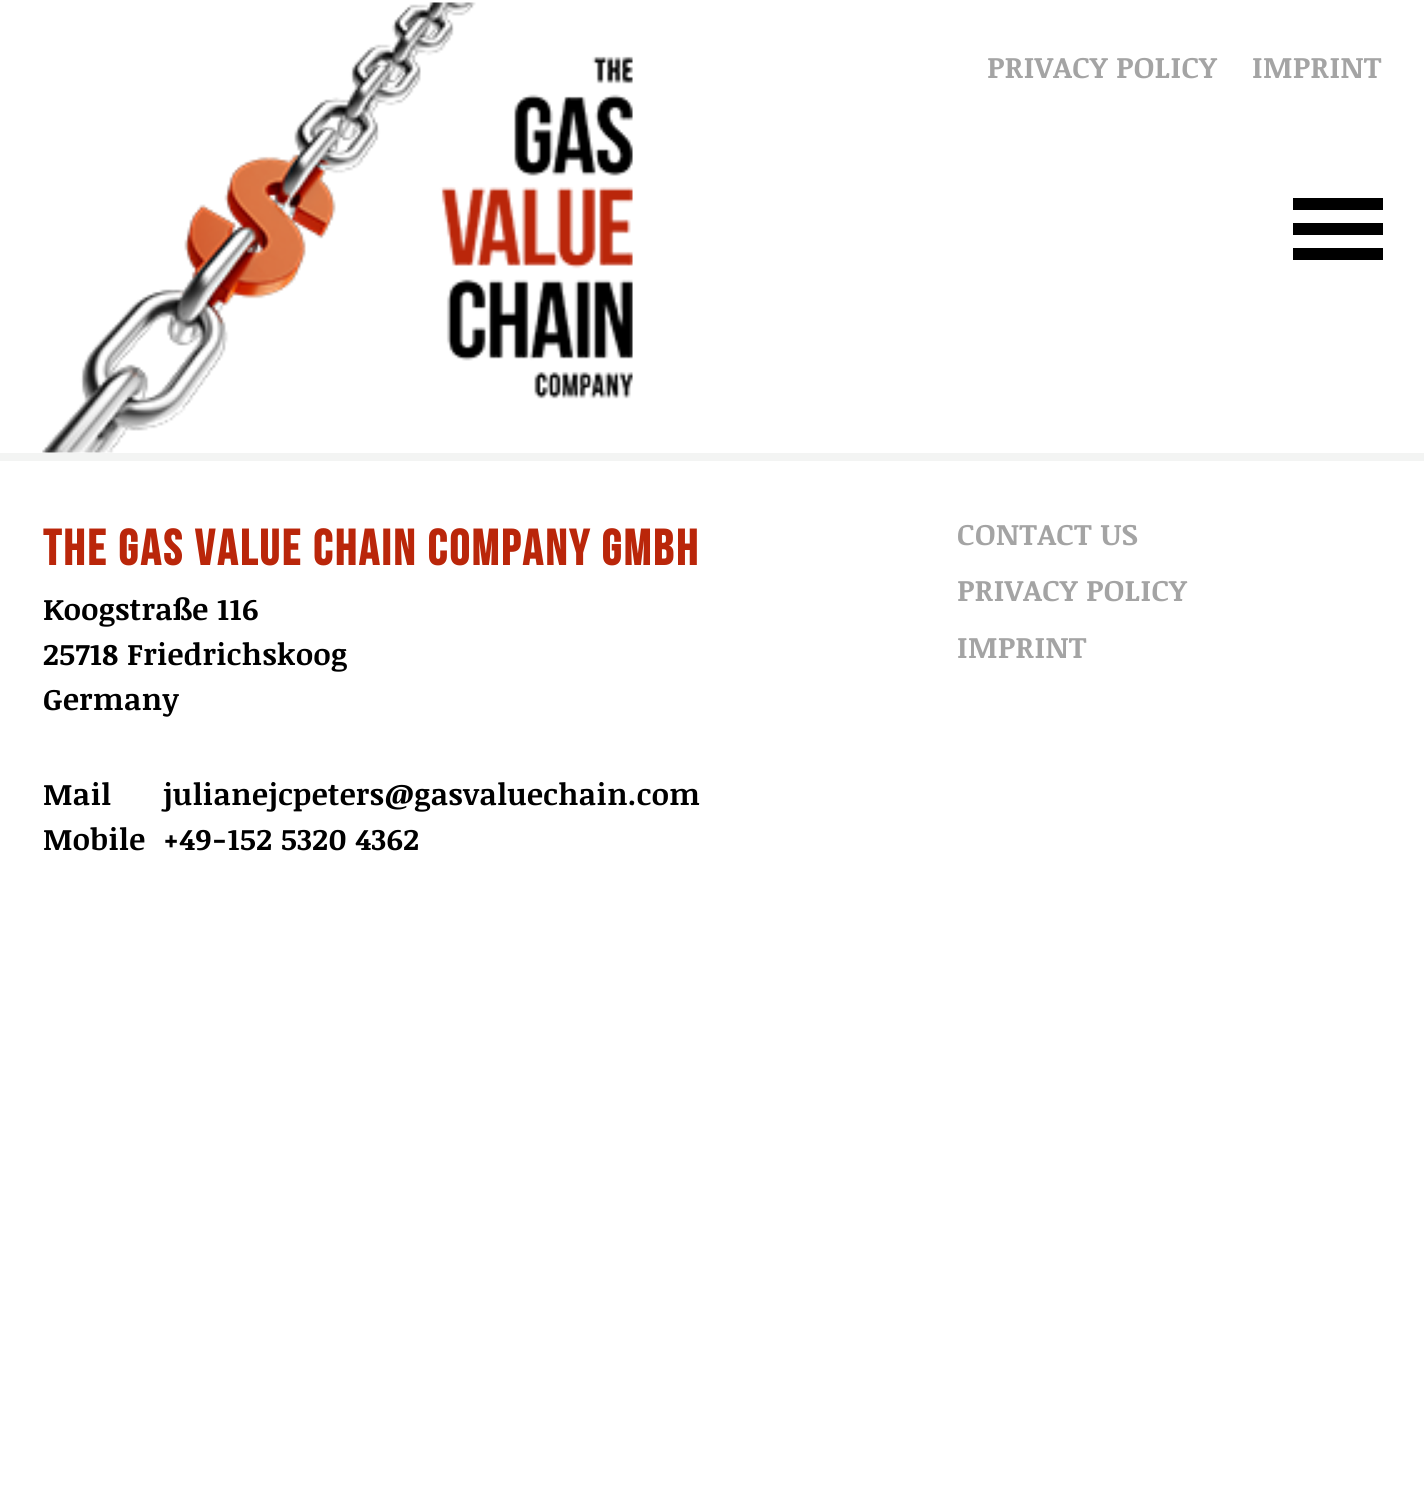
#include <cairo.h>
#include <math.h>
#include <stddef.h>

static cairo_t *c;
static void C(unsigned color){cairo_set_source_rgb(c, (color >> 16) / 255.0, (color >> 8 & 255) / 255.0, (color & 255) / 255.0);}
static void F(const char *family, double size, int italic, int bold){cairo_select_font_face(c, family, italic ? CAIRO_FONT_SLANT_ITALIC : CAIRO_FONT_SLANT_NORMAL,bold ? CAIRO_FONT_WEIGHT_BOLD : CAIRO_FONT_WEIGHT_NORMAL);cairo_set_font_size(c, size);}
static void L(double x, double y, const char *s, double letter, double word){cairo_move_to(c, x, y);while (*s) {char ch[5] = {0};int n = 0;do ch[n++] = *s++; while ((*s & 0xC0) == 0x80);cairo_show_text(c, ch);cairo_rel_move_to(c, letter + word * (*ch == ' '), 0);}}
static void R(double x, double y, double w, double h){cairo_rectangle(c, x, y, w, h);cairo_fill(c);}
static void I(const char *path, double x, double y, double w, double h){cairo_surface_t *image = cairo_image_surface_create_from_png(path);cairo_save(c);cairo_set_source_surface(c, image, x, y);cairo_rectangle(c, x, y, w, h);cairo_fill(c);cairo_restore(c);cairo_surface_destroy(image);}
int main(void) {
cairo_surface_t *surface = cairo_image_surface_create(CAIRO_FORMAT_RGB24, 1424, 1507);
c = cairo_create(surface);
cairo_font_options_t *options = cairo_font_options_create();
cairo_font_options_set_hint_metrics(options, CAIRO_HINT_METRICS_OFF);
cairo_font_options_set_hint_style(options, CAIRO_HINT_STYLE_NONE);
cairo_set_font_options(c, options);
cairo_set_miter_limit(c, 4);
C(0xffffff);
cairo_paint(c);
I("1.png",42,2,591,451);
F("Noticia Text",30,0,1);
C(0xa4a4a4);
L(987,78,"PRIVACY POLICY",.4,0);
L(1252,78,"IMPRINT",.4,0);
C(0x000000);
R(1293,198,90,12);
R(1293,223,90,12);
R(1293,248,90,12);
C(0xf3f4f3);
R(0,453,1424,8);
F("Bebas Neue",50,0,1);
C(0xba260a);
L(43,565,"THE GAS VALUE CHAIN COMPANY GmbH",2.5,0);
F("Noticia Text",30,0,1);
C(0x000000);
L(43,620,"Koogstraße 116",.4,0);
L(43,665,"25718 Friedrichskoog",.4,0);
L(43,710,"Germany",.4,0);
L(43,805,"Mail",.4,0);
L(163,805,"julianejcpeters@gasvaluechain.com",.4,0);
L(43,850,"Mobile",.4,0);
L(163,850,"+49-152 5320 4362",.4,0);
C(0xa4a4a4);
L(957,545,"CONTACT US",.4,0);
L(957,601,"PRIVACY POLICY",.4,0);
L(957,658,"IMPRINT",.4,0);
cairo_surface_write_to_png(surface, "o.png");
cairo_font_options_destroy(options);
cairo_destroy(c);
cairo_surface_destroy(surface);
return 0;
}
